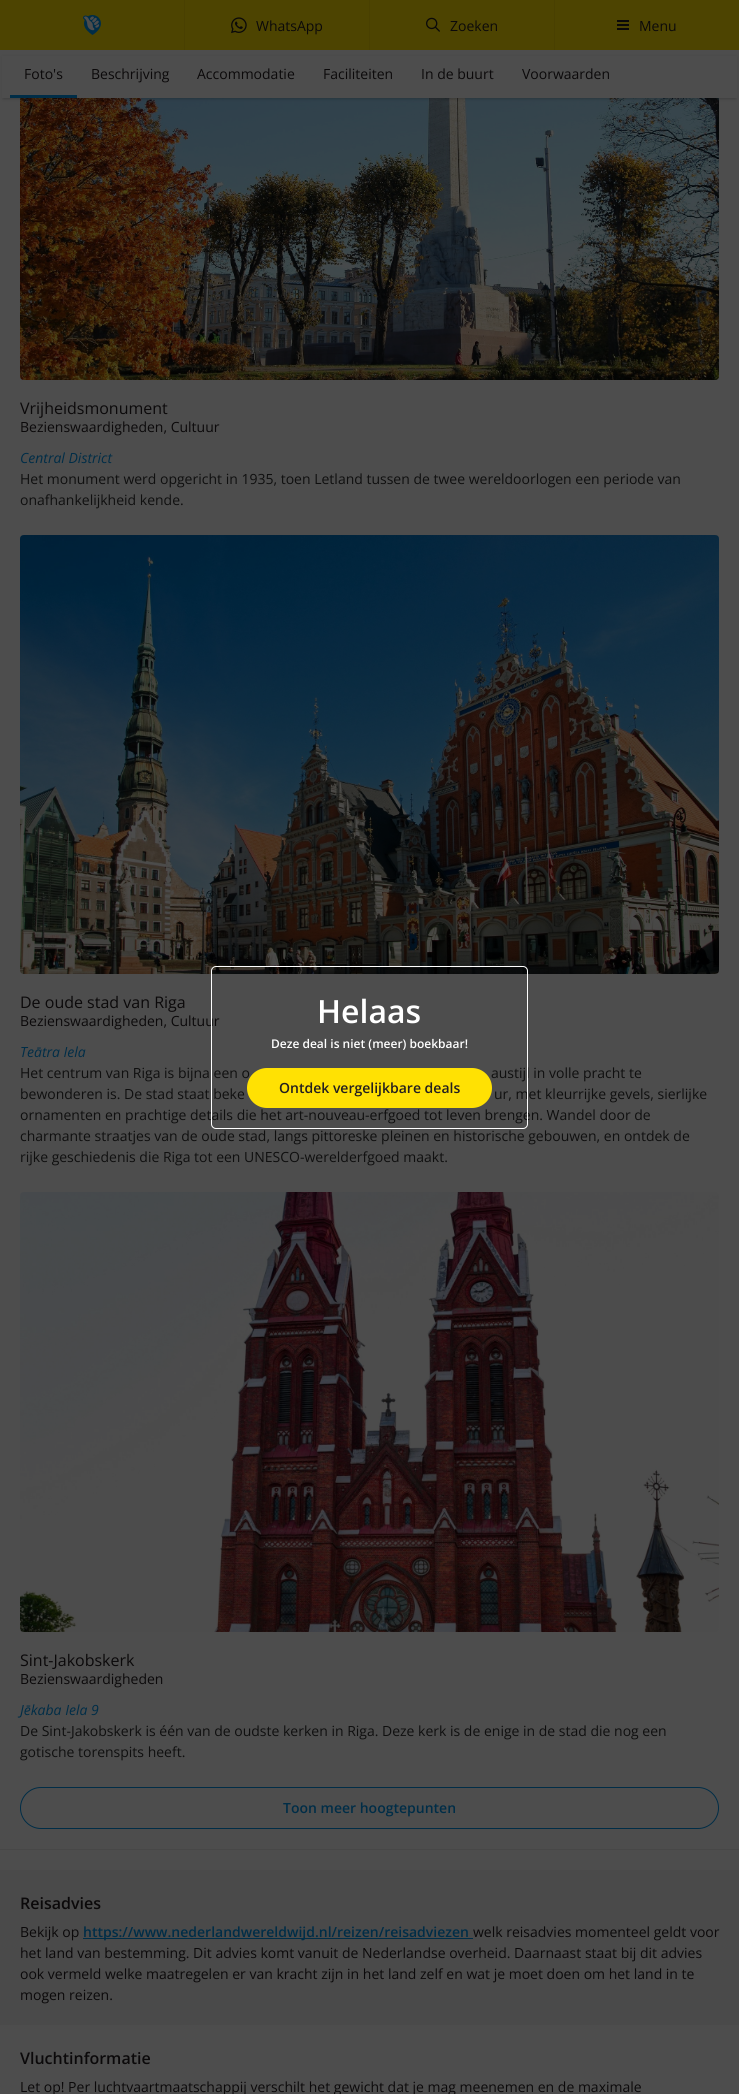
#include <cairo.h>
#include <math.h>
#include <stddef.h>

static cairo_t *c;
static void C(unsigned color){cairo_set_source_rgb(c, (color >> 16) / 255.0, (color >> 8 & 255) / 255.0, (color & 255) / 255.0);}
static void F(const char *family, double size, int italic, int bold){cairo_select_font_face(c, family, italic ? CAIRO_FONT_SLANT_ITALIC : CAIRO_FONT_SLANT_NORMAL,bold ? CAIRO_FONT_WEIGHT_BOLD : CAIRO_FONT_WEIGHT_NORMAL);cairo_set_font_size(c, size);}
static void T(double x, double y, const char *s){cairo_move_to(c, x, y);cairo_show_text(c, s);}
static void R(double x, double y, double w, double h){cairo_rectangle(c, x, y, w, h);cairo_fill(c);}
static void Q(double x, double y, double w, double h, double r){cairo_new_sub_path(c);cairo_arc(c, x + w - r, y + h - r, r, 0, M_PI / 2);cairo_arc(c, x + r, y + h - r, r, M_PI / 2, M_PI);cairo_arc(c, x + r, y + r, r, M_PI, 1.5 * M_PI);cairo_arc(c, x + w - r, y + r, r, 1.5 * M_PI, 2 * M_PI);cairo_close_path(c);}
static void S(double x, double y, double w, double h, double r, double blur, double alpha){cairo_push_group_with_content(c, CAIRO_CONTENT_ALPHA);cairo_set_operator(c, CAIRO_OPERATOR_SOURCE);for (int i = 15; i >= -15 && fmin(w, h) + blur * i / 3 > 0; i -= 2) {double e = blur * i / 6;cairo_set_source_rgba(c, 0, 0, 0, alpha * erfc((i - 1) / 8.5) / 2);Q(x - e, y - e, w + 2 * e, h + 2 * e, fmax(0, fmin(r + e + blur * .6, fmin(w, h) / 2 + e)));cairo_fill(c);}cairo_pattern_t *soft = cairo_pop_group(c);cairo_mask(c, soft);cairo_pattern_destroy(soft);}
static void I(const char *path, double x, double y, double w, double h){cairo_surface_t *image = cairo_image_surface_create_from_png(path);cairo_save(c);cairo_set_source_surface(c, image, x, y);cairo_rectangle(c, x, y, w, h);cairo_fill(c);cairo_restore(c);cairo_surface_destroy(image);}
int main(void) {
cairo_surface_t *surface = cairo_image_surface_create(CAIRO_FORMAT_RGB24, 739, 2094);
c = cairo_create(surface);
cairo_font_options_t *options = cairo_font_options_create();
cairo_font_options_set_hint_metrics(options, CAIRO_HINT_METRICS_OFF);
cairo_font_options_set_hint_style(options, CAIRO_HINT_STYLE_NONE);
cairo_set_font_options(c, options);
cairo_set_miter_limit(c, 4);
C(0x4d4d4d);
cairo_paint(c);
C(0x4d4401);
R(0,0,739,50);
C(0x494001);
R(184,0,1,50);
I("1.png",83,15,18,20);
R(369,0,1,50);
I("2.png",231,17,16,17);
F("Open Sans",14,0,0);
C(0x0b090a);
T(256,31,"WhatsApp");
C(0x494001);
R(554,0,1,50);
I("3.png",426,17,14,15);
C(0x0b090a);
T(450,31,"Zoeken");
R(617,20,12,2);
R(617,24,12,2);
R(617,28,12,2);
T(639,31,"Menu");
I("4.png",20,98,699,282);
C(0x000000);
S(3,57,733,42,0,1.5,.2);
C(0x4d4d4d);
R(2,56,735,42);
C(0x002d47);
R(10,95,67,3);
C(0x0b090a);
T(24,79,"Foto's");
T(91,79,"Beschrijving");
T(197,79,"Accommodatie");
T(323,79,"Faciliteiten");
T(421,79,"In de buurt");
T(522,79,"Voorwaarden");
F("Open Sans",16,0,0);
T(20,414,"Vrijheidsmonument");
F("Open Sans",14,0,0);
T(20,432,"Bezienswaardigheden, Cultuur");
F("Open Sans",14,1,0);
C(0x002d47);
T(20,463,"Central District");
F("Open Sans",14,0,0);
C(0x0f0f0f);
T(20,484,"Het monument werd opgericht in 1935, toen Letland tussen de twee wereldoorlogen een periode van");
T(20,505,"onafhankelijkheid kende.");
I("5.png",20,535,699,439);
F("Open Sans",16,0,0);
C(0x0b090a);
T(20,1008,"De oude stad van Riga");
F("Open Sans",14,0,0);
T(20,1026,"Bezienswaardigheden, Cultuur");
F("Open Sans",14,1,0);
C(0x002d47);
T(20,1057,"Teātra Iela");
F("Open Sans",14,0,0);
C(0x0f0f0f);
T(20,1078,"Het centrum van Riga is bijna een o");
T(491,1078,"austijl in volle pracht te");
T(20,1099,"bewonderen is. De stad staat beke");
T(494,1099,"ur, met kleurrijke gevels, sierlijke");
T(20,1120,"ornamenten en prachtige details die het art-nouveau-erfgoed tot leven brengen. Wandel door de");
T(20,1141,"charmante straatjes van de oude stad, langs pittoreske pleinen en historische gebouwen, en ontdek de");
T(20,1162,"rijke geschiedenis die Riga tot een UNESCO-werelderfgoed maakt.");
I("6.png",20,1192,699,440);
F("Open Sans",16,0,0);
C(0x0b090a);
T(20,1666,"Sint-Jakobskerk");
F("Open Sans",14,0,0);
T(20,1684,"Bezienswaardigheden");
F("Open Sans",14,1,0);
C(0x002d47);
T(20,1715,"Jēkaba Iela 9");
F("Open Sans",14,0,0);
C(0x0f0f0f);
T(20,1736,"De Sint-Jakobskerk is één van de oudste kerken in Riga. Deze kerk is de enige in de stad die nog een");
T(20,1757,"gotische torenspits heeft.");
Q(20.5,1787.5,698,41,20.5);
C(0x002d47);
cairo_set_line_width(c,1);
cairo_stroke(c);
F("Open Sans SemiBold",14,0,0);
T(283,1813,"Toon meer hoogtepunten");
Q(211.5,966.5,316,162,4.5);
C(0xffffff);
cairo_stroke(c);
F("Open Sans SemiBold",32,0,0);
T(317,1023,"Helaas");
F("Open Sans SemiBold",12,0,0);
T(271,1048,"Deze deal is niet (meer) boekbaar!");
C(0xffe103);
Q(247,1068,245,40,20);
cairo_fill(c);
F("Open Sans SemiBold",14,0,0);
C(0x231f20);
T(279,1093,"Ontdek vergelijkbare deals");
C(0x474747);
R(0,1849,739,1);
C(0x4a4a4a);
R(0,1870,739,155);
F("Open Sans SemiBold",16,0,0);
C(0x0b090a);
T(20,1909,"Reisadvies");
F("Open Sans",14,0,0);
T(20,1937,"Bekijk op");
C(0x002d47);
R(83,1938,390,1);
F("Open Sans SemiBold",14,0,0);
T(83,1937,"https://www.nederlandwereldwijd.nl/reizen/reisadviezen");
F("Open Sans",14,0,0);
C(0x0b090a);
T(473,1937,"welk reisadvies momenteel geldt voor");
T(20,1958,"het land van bestemming. Dit advies komt vanuit de Nederlandse overheid. Daarnaast staat bij dit advies");
T(20,1979,"ook vermeld welke maatregelen er van kracht zijn in het land zelf en wat je moet doen om het land in te");
T(20,2000,"mogen reizen.");
F("Open Sans SemiBold",16,0,0);
T(20,2064,"Vluchtinformatie");
F("Open Sans",14,0,0);
T(20,2092,"Let op! Per luchtvaartmaatschappij verschilt het gewicht dat je mag meenemen en de maximale");
cairo_surface_write_to_png(surface, "o.png");
cairo_font_options_destroy(options);
cairo_destroy(c);
cairo_surface_destroy(surface);
return 0;
}
